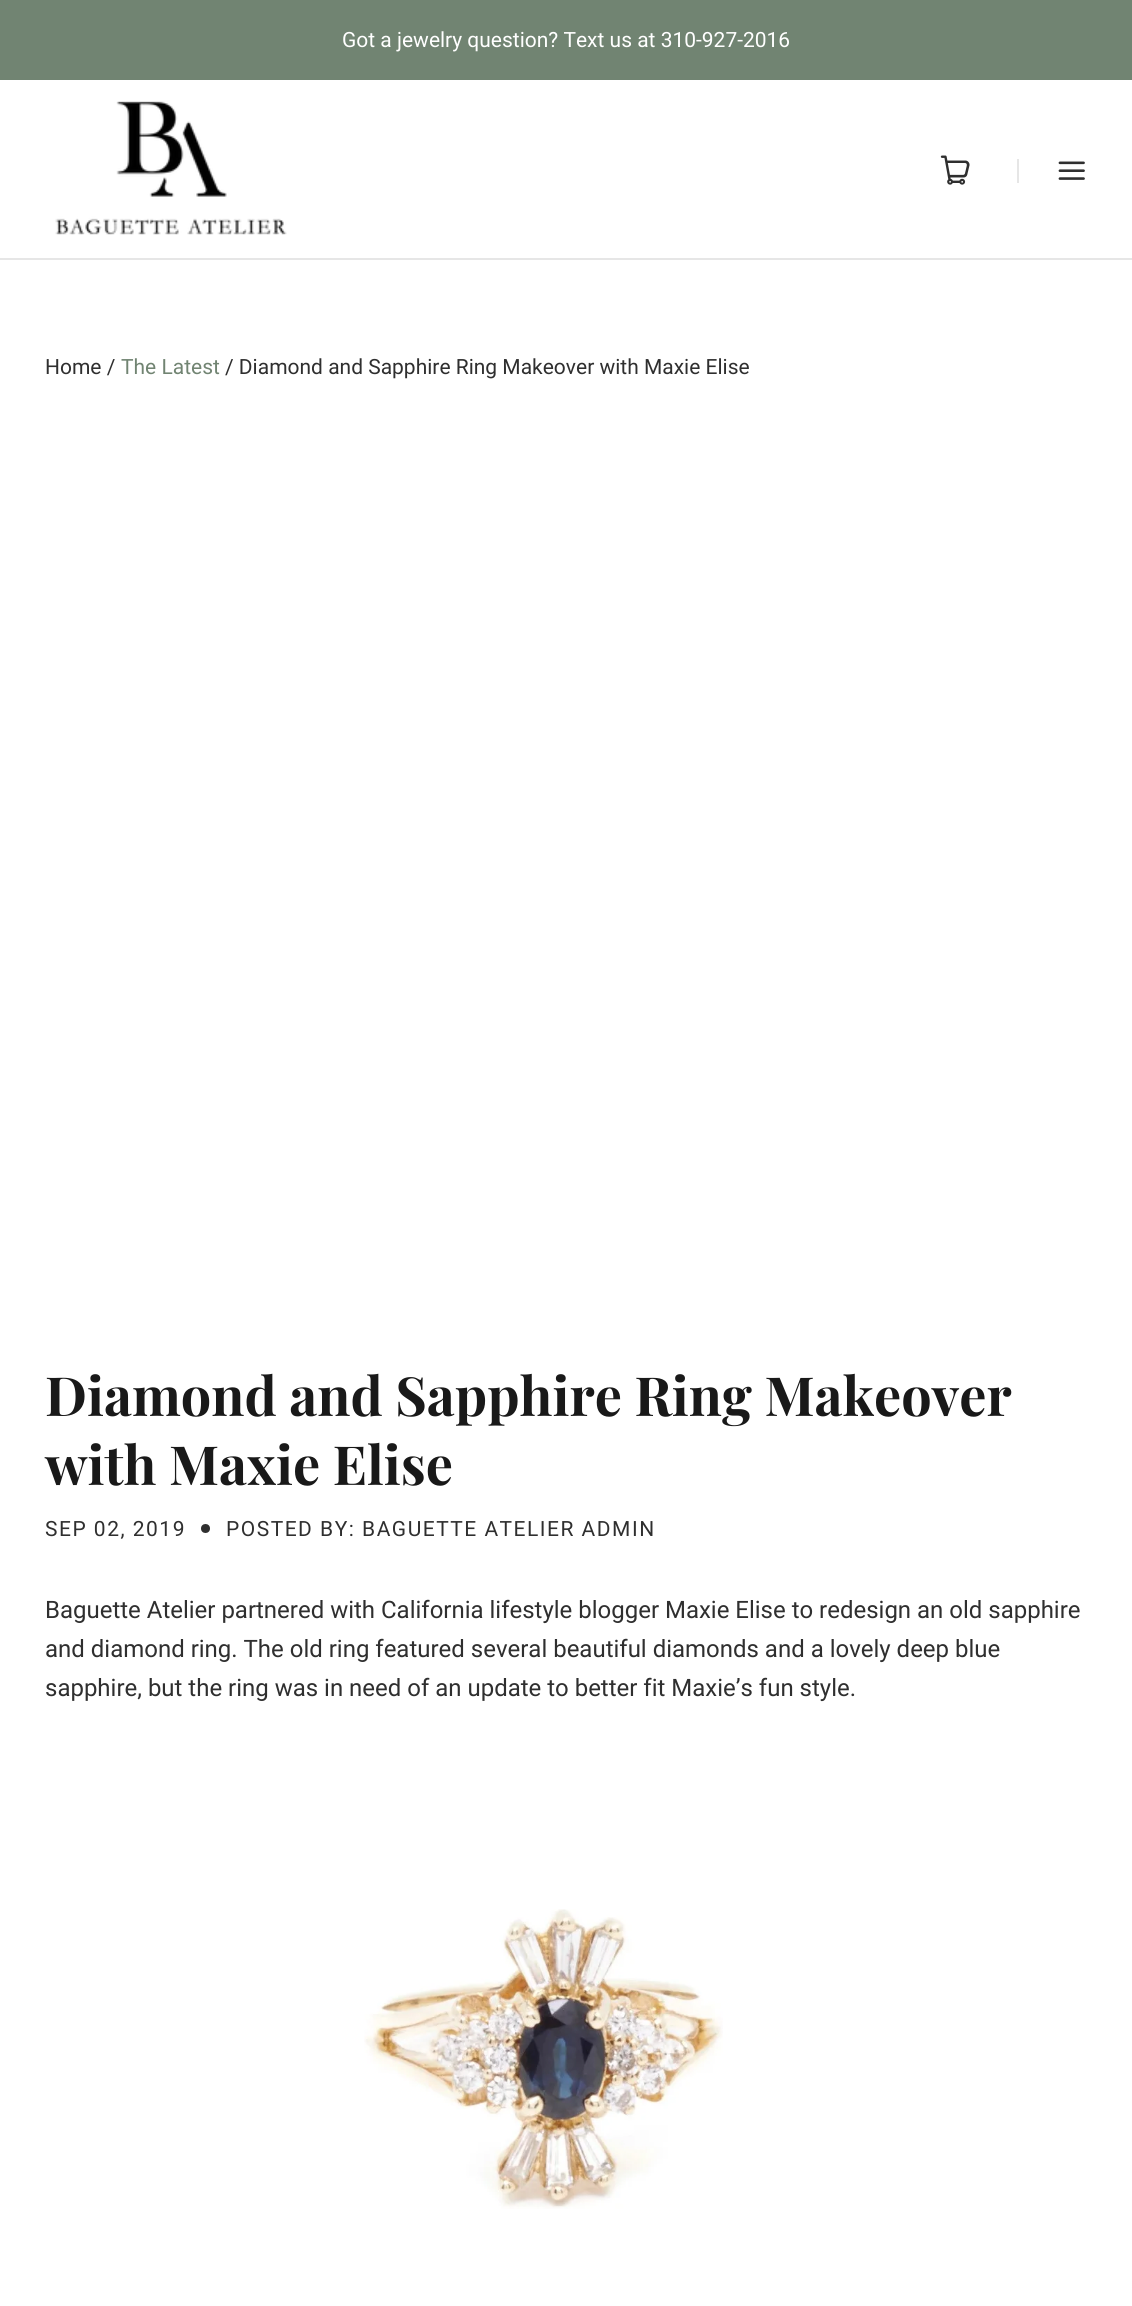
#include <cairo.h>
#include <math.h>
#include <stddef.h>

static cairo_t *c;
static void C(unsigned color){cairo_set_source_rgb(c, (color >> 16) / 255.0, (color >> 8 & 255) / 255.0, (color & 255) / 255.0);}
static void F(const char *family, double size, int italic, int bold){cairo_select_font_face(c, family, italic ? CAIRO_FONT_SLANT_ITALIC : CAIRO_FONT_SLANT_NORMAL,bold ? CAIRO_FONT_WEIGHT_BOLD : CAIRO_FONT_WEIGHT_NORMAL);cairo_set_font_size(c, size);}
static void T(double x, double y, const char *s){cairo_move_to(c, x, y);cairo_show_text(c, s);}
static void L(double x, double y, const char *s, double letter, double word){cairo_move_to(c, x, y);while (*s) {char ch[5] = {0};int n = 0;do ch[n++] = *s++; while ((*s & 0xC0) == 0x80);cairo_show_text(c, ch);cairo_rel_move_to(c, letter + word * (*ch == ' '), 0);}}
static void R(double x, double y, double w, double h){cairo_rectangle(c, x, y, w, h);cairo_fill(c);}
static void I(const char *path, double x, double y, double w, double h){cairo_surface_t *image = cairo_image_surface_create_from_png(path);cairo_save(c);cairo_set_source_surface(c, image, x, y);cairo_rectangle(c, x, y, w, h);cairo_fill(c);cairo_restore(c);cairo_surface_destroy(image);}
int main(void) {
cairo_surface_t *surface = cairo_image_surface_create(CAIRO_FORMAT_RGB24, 1132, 2306);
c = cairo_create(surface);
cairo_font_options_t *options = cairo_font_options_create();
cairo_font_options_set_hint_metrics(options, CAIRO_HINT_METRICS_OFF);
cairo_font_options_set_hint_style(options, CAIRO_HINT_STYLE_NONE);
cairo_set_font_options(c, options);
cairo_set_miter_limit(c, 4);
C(0xffffff);
cairo_paint(c);
C(0x718472);
R(0,0,1132,80);
F("Roboto",21,0,0);
C(0xffffff);
T(342,47,"Got a jewelry question? Text us at 310-927-2016");
C(0xe6e6e6);
R(0,258,1132,2);
I("1.png",55,101,232,134);
I("2.png",940,155,30,30);
R(1017,159,2,24);
I("3.png",1058,161,27,19);
C(0x2f2f2f);
T(45,374,"Home /");
C(0x718472);
T(121,374,"The Latest");
C(0x2f2f2f);
T(225,374,"/ Diamond and Sapphire Ring Makeover with Maxie Elise");
F("Playfair Display",54,0,1);
C(0x191919);
T(45,1416,"Diamond and Sapphire Ring Makeover");
T(45,1485,"with Maxie Elise");
F("Roboto",21,0,0);
C(0x2f2f2f);
L(45,1536,"SEP 02, 2019",1.5,0);
cairo_new_path(c);
cairo_arc(c,205.5,1528.5,4.5,0,2 * M_PI);
cairo_fill(c);
L(226,1536,"POSTED BY: BAGUETTE ATELIER ADMIN",1.5,0);
F("Roboto",24,0,0);
T(45,1618,"Baguette Atelier partnered with California lifestyle blogger Maxie Elise to redesign an old sapphire");
T(45,1657,"and diamond ring. The old ring featured several beautiful diamonds and a lovely deep blue");
T(45,1696,"sapphire, but the ring was in need of an update to better fit Maxie’s fun style.");
I("4.png",364,1909,359,300);
cairo_surface_write_to_png(surface, "o.png");
cairo_font_options_destroy(options);
cairo_destroy(c);
cairo_surface_destroy(surface);
return 0;
}
